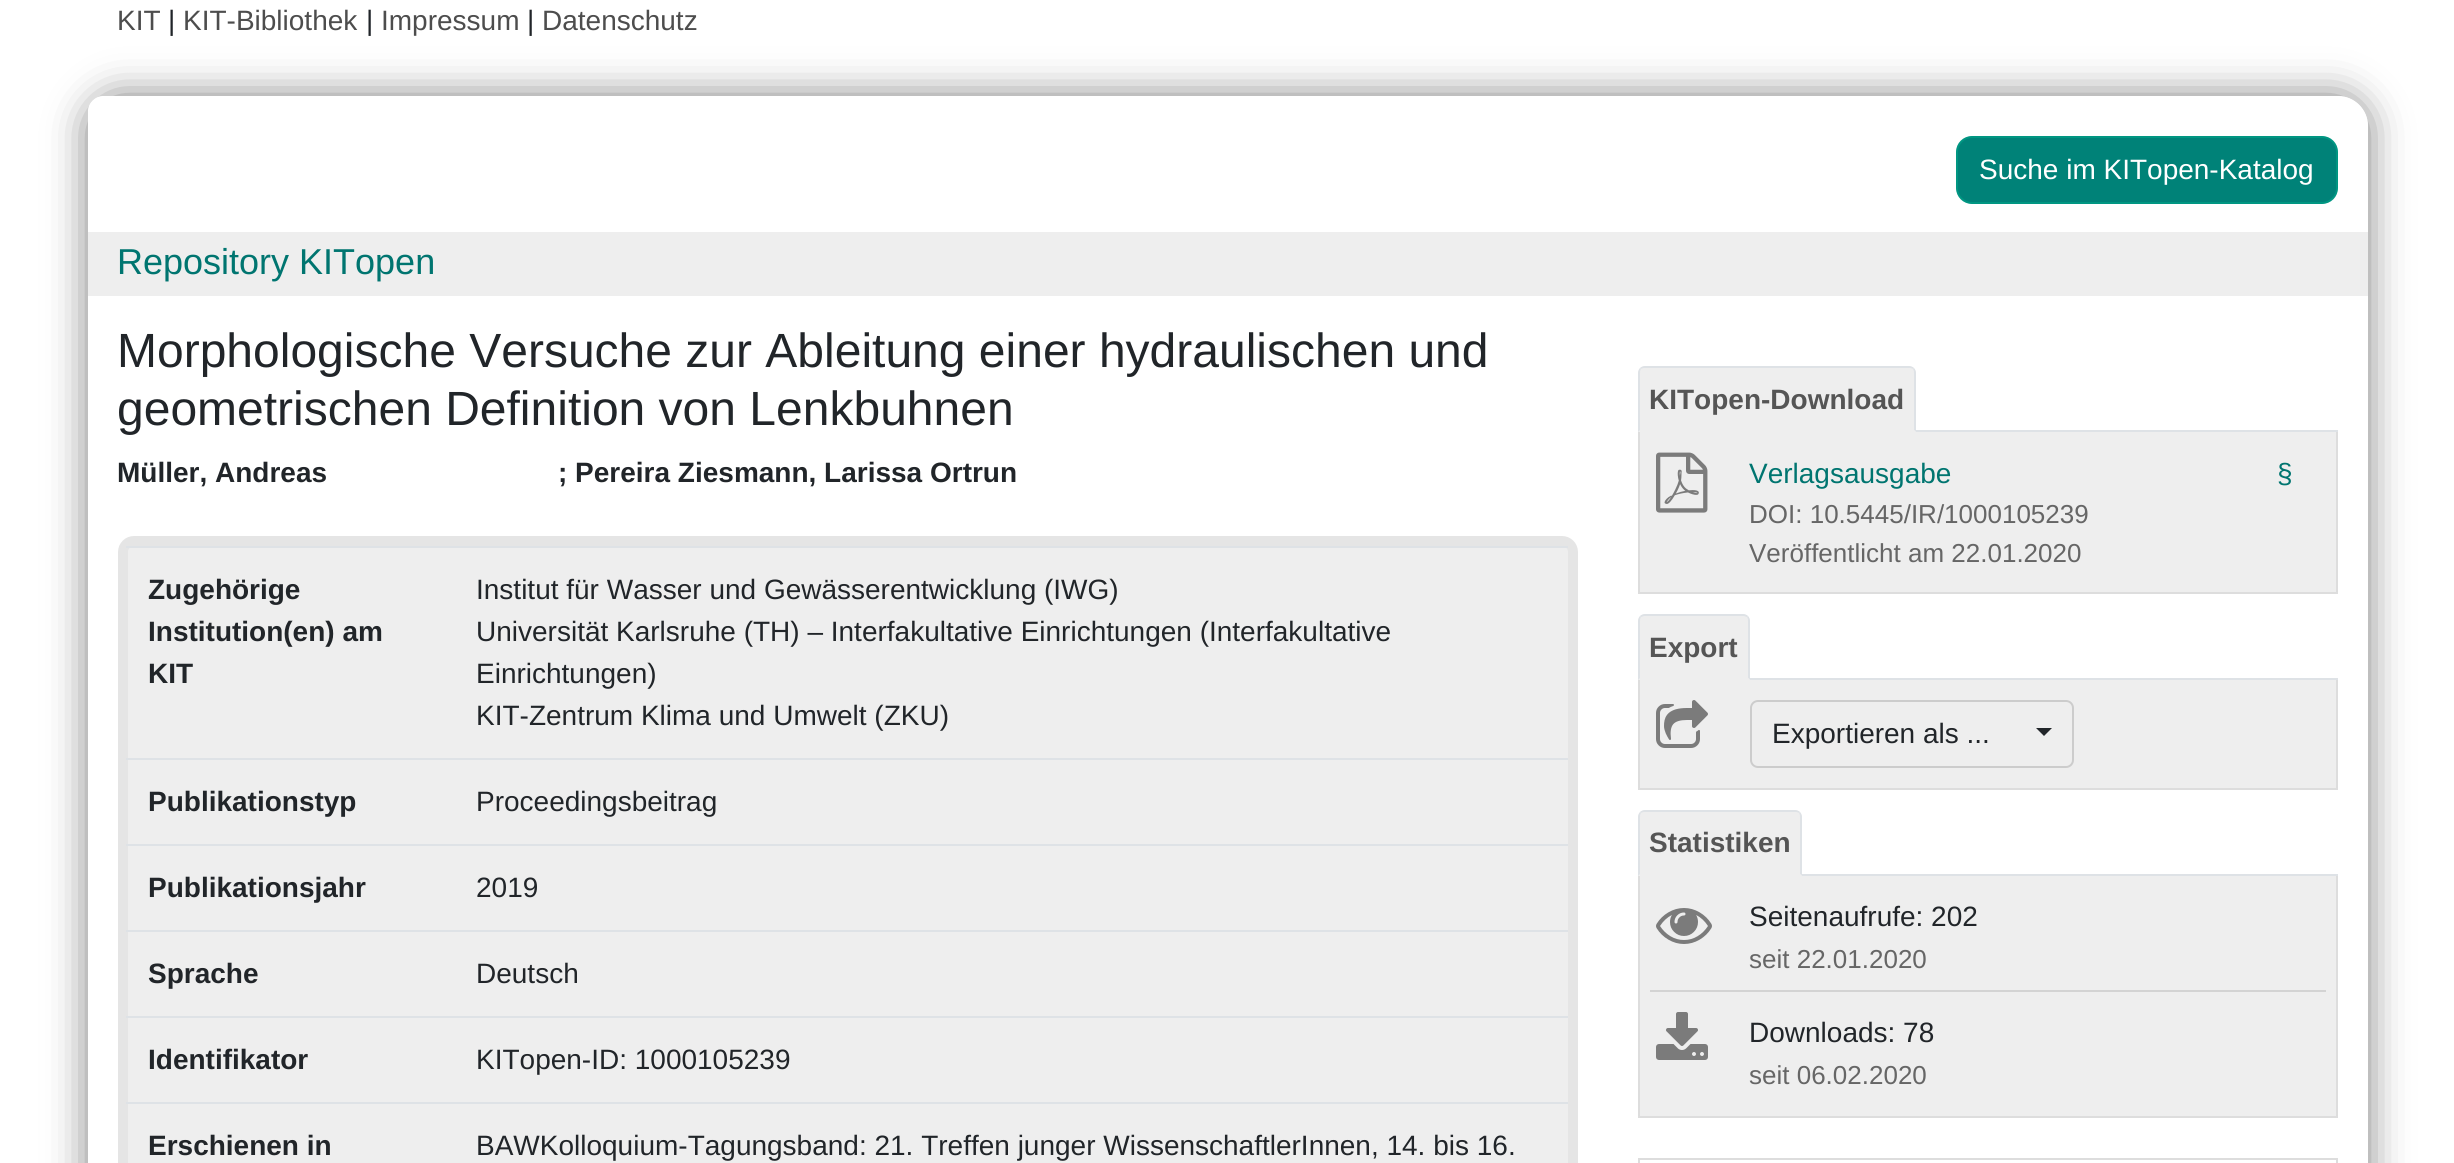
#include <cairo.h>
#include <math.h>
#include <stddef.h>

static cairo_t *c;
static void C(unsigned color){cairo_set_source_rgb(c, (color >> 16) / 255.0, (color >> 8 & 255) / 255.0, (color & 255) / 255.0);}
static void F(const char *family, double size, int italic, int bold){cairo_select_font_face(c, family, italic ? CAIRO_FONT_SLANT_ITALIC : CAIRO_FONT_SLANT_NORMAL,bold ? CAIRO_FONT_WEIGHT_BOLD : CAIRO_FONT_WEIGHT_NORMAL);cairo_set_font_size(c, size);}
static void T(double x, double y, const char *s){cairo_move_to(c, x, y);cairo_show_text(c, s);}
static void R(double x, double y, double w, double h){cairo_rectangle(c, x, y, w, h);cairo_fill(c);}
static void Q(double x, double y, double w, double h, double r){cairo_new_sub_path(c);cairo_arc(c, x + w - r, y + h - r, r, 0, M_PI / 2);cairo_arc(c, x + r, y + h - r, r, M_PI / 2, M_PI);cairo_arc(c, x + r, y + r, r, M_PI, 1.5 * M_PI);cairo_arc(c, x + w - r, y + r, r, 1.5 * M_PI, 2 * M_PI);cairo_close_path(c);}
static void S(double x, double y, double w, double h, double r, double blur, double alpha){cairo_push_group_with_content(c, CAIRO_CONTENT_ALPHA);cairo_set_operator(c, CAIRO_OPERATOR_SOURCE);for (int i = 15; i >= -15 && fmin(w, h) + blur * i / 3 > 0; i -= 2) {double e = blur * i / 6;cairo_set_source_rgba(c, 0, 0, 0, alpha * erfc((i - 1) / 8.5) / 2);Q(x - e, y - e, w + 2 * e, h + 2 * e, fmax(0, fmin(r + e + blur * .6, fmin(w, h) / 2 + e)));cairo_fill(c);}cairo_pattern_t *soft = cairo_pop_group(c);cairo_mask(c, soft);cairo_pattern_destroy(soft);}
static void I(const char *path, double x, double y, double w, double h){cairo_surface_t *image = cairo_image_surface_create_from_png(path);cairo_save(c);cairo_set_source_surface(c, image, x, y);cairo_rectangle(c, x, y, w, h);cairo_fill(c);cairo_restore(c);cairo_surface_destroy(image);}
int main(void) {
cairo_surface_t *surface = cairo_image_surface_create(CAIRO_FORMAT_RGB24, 2454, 1163);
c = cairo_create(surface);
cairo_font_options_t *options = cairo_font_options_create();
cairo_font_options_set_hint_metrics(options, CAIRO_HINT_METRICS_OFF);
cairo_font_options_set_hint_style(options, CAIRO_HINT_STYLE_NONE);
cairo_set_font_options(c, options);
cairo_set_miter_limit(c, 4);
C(0xffffff);
cairo_paint(c);
F("Liberation Sans",28,0,0);
C(0x4d4d4d);
T(117,30,"KIT");
cairo_save(c);
cairo_set_fill_rule(c,CAIRO_FILL_RULE_EVEN_ODD);
cairo_new_path(c);
cairo_move_to(c,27,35);
cairo_line_to(c,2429,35);
cairo_line_to(c,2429,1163);
cairo_line_to(c,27,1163);
cairo_close_path(c);
cairo_move_to(c,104,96);
cairo_line_to(c,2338,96);
cairo_curve_to(c,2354.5,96,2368,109.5,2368,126);
cairo_line_to(c,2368,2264);
cairo_curve_to(c,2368,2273,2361,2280,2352,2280);
cairo_line_to(c,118,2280);
cairo_curve_to(c,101.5,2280,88,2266.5,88,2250);
cairo_line_to(c,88,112);
cairo_curve_to(c,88,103,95,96,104,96);
cairo_close_path(c);
cairo_clip(c);
C(0x808080);
S(88,96,2280,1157,30,20,1);
cairo_restore(c);
C(0x212529);
T(168,30,"|");
C(0x4d4d4d);
T(183,30,"KIT-Bibliothek");
C(0x212529);
T(366,30,"|");
C(0x4d4d4d);
T(381,30,"Impressum");
C(0x212529);
T(527,30,"|");
C(0x4d4d4d);
T(542,30,"Datenschutz");
C(0x008278);
Q(1957,137,380,66,15);
cairo_fill_preserve(c);
C(0x009682);
cairo_stroke(c);
C(0xffffff);
T(1979,179,"Suche im KITopen-Katalog");
C(0xeeeeee);
R(88,232,2280,64);
F("Liberation Sans",36,0,0);
C(0x007570);
T(117,274,"Repository KITopen");
F("Liberation Sans",48,0,0);
C(0x212529);
T(117,367,"Morphologische Versuche zur Ableitung einer hydraulischen und");
T(117,425,"geometrischen Definition von Lenkbuhnen");
F("Liberation Sans",28,0,1);
T(117,482,"Müller, Andreas");
T(558,482,"; Pereira Ziesmann, Larissa Ortrun");
C(0xeeeeee);
Q(123,541,1450,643,11);
cairo_fill_preserve(c);
C(0xe5e5e5);
cairo_set_line_width(c,10);
cairo_stroke(c);
C(0x212529);
T(148,599,"Zugehörige");
T(148,641,"Institution(en) am");
T(148,683,"KIT");
C(0xdee2e6);
R(126,546,1442,2);
F("Liberation Sans",28,0,0);
C(0x212529);
T(476,599,"Institut für Wasser und Gewässerentwicklung (IWG)");
T(476,641,"Universität Karlsruhe (TH) – Interfakultative Einrichtungen (Interfakultative");
T(476,683,"Einrichtungen)");
T(476,725,"KIT-Zentrum Klima und Umwelt (ZKU)");
F("Liberation Sans",28,0,1);
T(148,811,"Publikationstyp");
C(0xdee2e6);
R(126,758,1442,2);
F("Liberation Sans",28,0,0);
C(0x212529);
T(476,811,"Proceedingsbeitrag");
F("Liberation Sans",28,0,1);
T(148,897,"Publikationsjahr");
C(0xdee2e6);
R(126,844,1442,2);
F("Liberation Sans",28,0,0);
C(0x212529);
T(476,897,"2019");
F("Liberation Sans",28,0,1);
T(148,983,"Sprache");
C(0xdee2e6);
R(126,930,1442,2);
F("Liberation Sans",28,0,0);
C(0x212529);
T(476,983,"Deutsch");
F("Liberation Sans",28,0,1);
T(148,1069,"Identifikator");
C(0xdee2e6);
R(126,1016,1442,2);
F("Liberation Sans",28,0,0);
C(0x212529);
T(476,1069,"KITopen-ID: 1000105239");
F("Liberation Sans",28,0,1);
T(148,1155,"Erschienen in");
C(0xdee2e6);
R(126,1102,1442,2);
F("Liberation Sans",28,0,0);
C(0x212529);
T(476,1155,"BAWKolloquium-Tagungsband: 21. Treffen junger WissenschaftlerInnen, 14. bis 16.");
C(0xdee2e6);
R(1916,430,422,2);
C(0xeeeeee);
cairo_new_path(c);
cairo_move_to(c,1646,366);
cairo_line_to(c,1908,366);
cairo_curve_to(c,1912.5,366,1916,369.5,1916,374);
cairo_line_to(c,1916,432);
cairo_line_to(c,1638,432);
cairo_line_to(c,1638,374);
cairo_curve_to(c,1638,369.5,1641.5,366,1646,366);
cairo_close_path(c);
cairo_fill(c);
C(0xdee2e6);
cairo_new_path(c);
cairo_move_to(c,1645,366);
cairo_curve_to(c,1643,366,1641,367,1640,368);
cairo_line_to(c,1641,369);
cairo_curve_to(c,1642,368,1644,368,1645,368);
cairo_line_to(c,1909,368);
cairo_curve_to(c,1910,368,1912,368,1913,369);
cairo_line_to(c,1914,368);
cairo_curve_to(c,1913,367,1911,366,1909,366);
cairo_close_path(c);
cairo_fill(c);
cairo_new_path(c);
cairo_move_to(c,1916,432);
cairo_line_to(c,1916,373);
cairo_curve_to(c,1916,371,1915,369,1914,368);
cairo_line_to(c,1913,369);
cairo_curve_to(c,1914,370,1914,372,1914,373);
cairo_line_to(c,1914,430);
cairo_close_path(c);
cairo_fill(c);
C(0xeeeeee);
cairo_new_path(c);
cairo_move_to(c,1916,432);
cairo_line_to(c,1914,430);
cairo_line_to(c,1640,430);
cairo_line_to(c,1638,432);
cairo_close_path(c);
cairo_fill(c);
C(0xdee2e6);
cairo_new_path(c);
cairo_move_to(c,1638,432);
cairo_line_to(c,1640,430);
cairo_line_to(c,1640,373);
cairo_curve_to(c,1640,372,1640,370,1641,369);
cairo_line_to(c,1640,368);
cairo_curve_to(c,1639,369,1638,371,1638,373);
cairo_close_path(c);
cairo_fill(c);
F("Liberation Sans",28,0,1);
C(0x555555);
T(1649,409,"KITopen-Download");
C(0xeeeeee);
R(1640,432,696,160);
C(0xdddddd);
R(2336,432,2,162);
R(1638,592,700,2);
R(1638,432,2,162);
I("1.png",1656,452,52,61);
F("Liberation Sans",28,0,0);
C(0x007570);
T(1749,483,"Verlagsausgabe");
T(2277,483,"§");
F("Liberation Sans",26,0,0);
C(0x666666);
T(1749,523,"DOI: 10.5445/IR/1000105239");
T(1749,562,"Veröffentlicht am 22.01.2020");
C(0xdee2e6);
R(1750,678,588,2);
C(0xeeeeee);
cairo_new_path(c);
cairo_move_to(c,1646,614);
cairo_line_to(c,1742,614);
cairo_curve_to(c,1746.5,614,1750,617.5,1750,622);
cairo_line_to(c,1750,680);
cairo_line_to(c,1638,680);
cairo_line_to(c,1638,622);
cairo_curve_to(c,1638,617.5,1641.5,614,1646,614);
cairo_close_path(c);
cairo_fill(c);
C(0xdee2e6);
cairo_new_path(c);
cairo_move_to(c,1645,614);
cairo_curve_to(c,1643,614,1641,615,1640,616);
cairo_line_to(c,1641,617);
cairo_line_to(c,1644,616);
cairo_line_to(c,1744,616);
cairo_line_to(c,1747,617);
cairo_line_to(c,1748,616);
cairo_curve_to(c,1747,615,1745,614,1743,614);
cairo_close_path(c);
cairo_fill(c);
cairo_new_path(c);
cairo_move_to(c,1750,680);
cairo_line_to(c,1750,621);
cairo_curve_to(c,1750,619,1749,617,1748,616);
cairo_line_to(c,1747,617);
cairo_curve_to(c,1748,618,1748,620,1748,621);
cairo_line_to(c,1748,678);
cairo_close_path(c);
cairo_fill(c);
C(0xeeeeee);
cairo_new_path(c);
cairo_move_to(c,1750,680);
cairo_line_to(c,1748,678);
cairo_line_to(c,1640,678);
cairo_line_to(c,1638,680);
cairo_close_path(c);
cairo_fill(c);
C(0xdee2e6);
cairo_new_path(c);
cairo_move_to(c,1638,680);
cairo_line_to(c,1640,678);
cairo_line_to(c,1640,621);
cairo_curve_to(c,1640,620,1640,618,1641,617);
cairo_line_to(c,1640,616);
cairo_curve_to(c,1639,617,1638,619,1638,621);
cairo_close_path(c);
cairo_fill(c);
F("Liberation Sans",28,0,1);
C(0x555555);
T(1649,657,"Export");
C(0xeeeeee);
R(1640,680,696,108);
C(0xdddddd);
R(2336,680,2,110);
R(1638,788,700,2);
R(1638,680,2,110);
I("2.png",1656,700,52,48);
Q(1751,701,322,66,7);
C(0xcccccc);
cairo_set_line_width(c,2);
cairo_stroke(c);
F("Liberation Sans",28,0,0);
C(0x212529);
T(1772,743,"Exportieren als ...");
cairo_new_path(c);
cairo_move_to(c,2036,728);
cairo_line_to(c,2052,728);
cairo_line_to(c,2044,736);
cairo_close_path(c);
cairo_fill(c);
C(0xdee2e6);
R(1802,874,536,2);
C(0xeeeeee);
cairo_new_path(c);
cairo_move_to(c,1646,810);
cairo_line_to(c,1794,810);
cairo_curve_to(c,1798.5,810,1802,813.5,1802,818);
cairo_line_to(c,1802,876);
cairo_line_to(c,1638,876);
cairo_line_to(c,1638,818);
cairo_curve_to(c,1638,813.5,1641.5,810,1646,810);
cairo_close_path(c);
cairo_fill(c);
C(0xdee2e6);
cairo_new_path(c);
cairo_move_to(c,1645,810);
cairo_curve_to(c,1643,810,1641,811,1640,812);
cairo_line_to(c,1641,813);
cairo_curve_to(c,1642,812,1644,812,1645,812);
cairo_line_to(c,1795,812);
cairo_curve_to(c,1796,812,1798,812,1799,813);
cairo_line_to(c,1800,812);
cairo_curve_to(c,1799,811,1797,810,1795,810);
cairo_close_path(c);
cairo_fill(c);
cairo_new_path(c);
cairo_move_to(c,1802,876);
cairo_line_to(c,1802,817);
cairo_curve_to(c,1802,815,1801,813,1800,812);
cairo_line_to(c,1799,813);
cairo_curve_to(c,1800,814,1800,816,1800,817);
cairo_line_to(c,1800,874);
cairo_close_path(c);
cairo_fill(c);
C(0xeeeeee);
cairo_new_path(c);
cairo_move_to(c,1802,876);
cairo_line_to(c,1800,874);
cairo_line_to(c,1640,874);
cairo_line_to(c,1638,876);
cairo_close_path(c);
cairo_fill(c);
C(0xdee2e6);
cairo_new_path(c);
cairo_move_to(c,1638,876);
cairo_line_to(c,1640,874);
cairo_line_to(c,1640,817);
cairo_curve_to(c,1640,816,1640,814,1641,813);
cairo_line_to(c,1640,812);
cairo_curve_to(c,1639,813,1638,815,1638,817);
cairo_close_path(c);
cairo_fill(c);
F("Liberation Sans",28,0,1);
C(0x555555);
T(1649,852,"Statistiken");
C(0xeeeeee);
R(1640,876,696,240);
C(0xdddddd);
R(2336,876,2,242);
R(1638,1116,700,2);
R(1638,876,2,242);
C(0xd3d3d3);
R(1650,990,676,2);
I("3.png",1656,908,56,36);
F("Liberation Sans",28,0,0);
C(0x212529);
T(1749,926,"Seitenaufrufe: 202");
F("Liberation Sans",26,0,0);
C(0x666666);
T(1749,968,"seit 22.01.2020");
I("4.png",1656,1012,52,48);
F("Liberation Sans",28,0,0);
C(0x212529);
T(1749,1042,"Downloads: 78");
F("Liberation Sans",26,0,0);
C(0x666666);
T(1749,1084,"seit 06.02.2020");
cairo_rectangle(c,1639,1159,698,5);
C(0xdddddd);
cairo_stroke(c);
cairo_surface_write_to_png(surface, "o.png");
cairo_font_options_destroy(options);
cairo_destroy(c);
cairo_surface_destroy(surface);
return 0;
}
